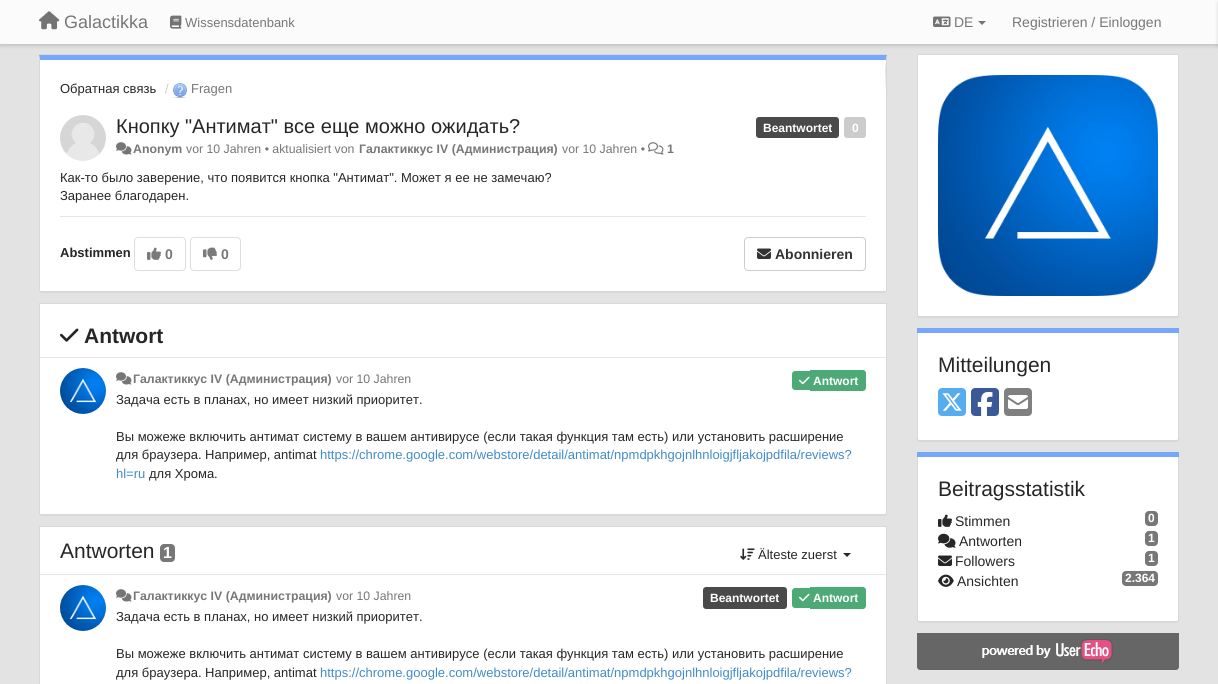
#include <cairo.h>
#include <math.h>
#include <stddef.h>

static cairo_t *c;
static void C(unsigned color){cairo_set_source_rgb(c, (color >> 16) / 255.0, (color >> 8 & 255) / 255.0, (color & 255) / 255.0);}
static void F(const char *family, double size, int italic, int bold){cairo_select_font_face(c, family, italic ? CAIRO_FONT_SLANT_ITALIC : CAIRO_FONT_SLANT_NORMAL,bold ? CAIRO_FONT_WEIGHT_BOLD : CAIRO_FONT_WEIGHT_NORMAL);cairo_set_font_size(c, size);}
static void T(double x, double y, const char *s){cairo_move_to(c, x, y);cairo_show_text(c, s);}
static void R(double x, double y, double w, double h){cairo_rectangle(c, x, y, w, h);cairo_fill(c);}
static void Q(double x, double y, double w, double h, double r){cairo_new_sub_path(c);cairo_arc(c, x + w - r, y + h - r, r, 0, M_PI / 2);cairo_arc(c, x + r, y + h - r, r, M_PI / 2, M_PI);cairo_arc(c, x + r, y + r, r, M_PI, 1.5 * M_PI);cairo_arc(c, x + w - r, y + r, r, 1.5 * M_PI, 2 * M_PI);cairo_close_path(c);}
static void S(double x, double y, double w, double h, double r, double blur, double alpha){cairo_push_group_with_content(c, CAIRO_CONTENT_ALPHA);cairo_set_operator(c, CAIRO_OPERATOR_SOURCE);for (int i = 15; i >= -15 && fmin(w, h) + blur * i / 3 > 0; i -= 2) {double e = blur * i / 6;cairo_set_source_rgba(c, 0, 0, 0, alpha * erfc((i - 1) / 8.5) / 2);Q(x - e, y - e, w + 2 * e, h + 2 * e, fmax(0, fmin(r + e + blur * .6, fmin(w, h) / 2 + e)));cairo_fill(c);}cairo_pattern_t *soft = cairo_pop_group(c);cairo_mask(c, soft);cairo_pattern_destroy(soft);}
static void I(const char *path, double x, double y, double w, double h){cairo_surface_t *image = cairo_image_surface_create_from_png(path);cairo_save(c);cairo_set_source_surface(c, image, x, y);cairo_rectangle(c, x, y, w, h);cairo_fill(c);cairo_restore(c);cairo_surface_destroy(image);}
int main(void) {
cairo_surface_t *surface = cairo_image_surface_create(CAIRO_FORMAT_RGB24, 1218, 684);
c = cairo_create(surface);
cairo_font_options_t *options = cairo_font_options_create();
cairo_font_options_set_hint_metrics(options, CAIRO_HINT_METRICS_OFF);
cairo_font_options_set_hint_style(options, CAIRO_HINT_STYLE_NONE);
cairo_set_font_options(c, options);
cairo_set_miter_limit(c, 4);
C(0xe3e3e3);
cairo_paint(c);
C(0x000000);
S(0,2,1218,44,0,2,.15);
C(0xfbfbfb);
R(0,0,1218,44);
I("1.png",39,11,21,19);
F("Liberation Sans",18,0,0);
C(0x777777);
T(64,28,"Galactikka");
I("2.png",170,15,12,14);
F("Liberation Sans",13,0,0);
T(185,27,"Wissensdatenbank");
I("3.png",933,16,18,11);
F("Liberation Sans",14,0,0);
T(954,27,"DE");
C(0x737373);
cairo_new_path(c);
cairo_move_to(c,978,21);
cairo_line_to(c,986,21);
cairo_line_to(c,982,25);
cairo_close_path(c);
cairo_fill(c);
C(0x777777);
T(1012,27,"Registrieren / Einloggen");
C(0x000000);
S(1218,2,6,44,0,2,.15);
C(0xd8d8d8);
R(39,54,848,1);
C(0xffffff);
cairo_new_path(c);
cairo_move_to(c,40,60);
cairo_line_to(c,886,60);
cairo_line_to(c,886,290);
cairo_curve_to(c,886,291,885,291,884,291);
cairo_line_to(c,42,291);
cairo_curve_to(c,41,291,40,291,40,290);
cairo_close_path(c);
cairo_fill(c);
C(0x76a7fa);
cairo_new_path(c);
cairo_move_to(c,39,55);
cairo_line_to(c,40,60);
cairo_line_to(c,886,60);
cairo_line_to(c,887,55);
cairo_close_path(c);
cairo_fill(c);
C(0xd8d8d8);
cairo_new_path(c);
cairo_move_to(c,887,55);
cairo_curve_to(c,884,70,886,75,886,98);
cairo_line_to(c,886,291);
cairo_line_to(c,886,292);
cairo_line_to(c,887,290);
cairo_close_path(c);
cairo_fill(c);
cairo_new_path(c);
cairo_move_to(c,42,293);
cairo_line_to(c,884,293);
cairo_line_to(c,886,292);
cairo_line_to(c,886,291);
cairo_line_to(c,884,291);
cairo_line_to(c,42,291);
cairo_line_to(c,40,291);
cairo_line_to(c,40,292);
cairo_close_path(c);
cairo_fill(c);
cairo_new_path(c);
cairo_move_to(c,40,60);
cairo_line_to(c,39,55);
cairo_line_to(c,39,290);
cairo_line_to(c,40,292);
cairo_line_to(c,40,290);
cairo_close_path(c);
cairo_fill(c);
F("Liberation Sans",13,0,0);
C(0x262626);
T(60,93,"Обратная связь");
C(0xcccccc);
T(165,93,"/");
I("4.png",173,83,14,15);
C(0x777777);
T(191,93,"Fragen");
I("5.png",60,115,46,46);
F("Liberation Sans",20,0,0);
C(0x262626);
T(116,133,"Кнопку \"Антимат\" все еще можно ожидать?");
C(0x4a4a4a);
Q(756,117,83,21,3);
cairo_fill(c);
F("Liberation Sans",12,0,1);
C(0xffffff);
T(763,132,"Beantwortet");
C(0xcccccc);
Q(844,117,22,21,3);
cairo_fill(c);
C(0xffffff);
T(852,132,"0");
I("6.png",116,142,16,13);
F("Liberation Sans",12.3,0,1);
C(0x777777);
T(133,153,"Anonym");
F("Liberation Sans",12.3,0,0);
T(186,153,"vor 10 Jahren • aktualisiert von");
F("Liberation Sans",12.3,0,1);
T(359,153,"Галактиккус IV (Администрация)");
F("Liberation Sans",12.3,0,0);
T(562,153,"vor 10 Jahren •");
I("7.png",648,142,16,13);
F("Liberation Sans",12.3,0,1);
T(667,153,"1");
F("Liberation Sans",13,0,0);
C(0x262626);
T(60,182,"Как-то было заверение, что появится кнопка \"Антимат\". Может я ее не замечаю?");
T(60,200,"Заранее благодарен.");
C(0xe5e5e5);
R(60,216,806,1);
F("Liberation Sans",13,0,1);
C(0x262626);
T(60,257,"Abstimmen");
Q(134.5,237.5,51,33,3.5);
C(0xdedede);
cairo_set_line_width(c,1);
cairo_stroke(c);
I("8.png",147,247,14,13);
F("Liberation Sans",14,0,1);
C(0x777777);
T(165,259,"0");
Q(190.5,237.5,50,33,3.5);
C(0xdedede);
cairo_stroke(c);
I("9.png",203,247,14,13);
C(0x777777);
T(221,259,"0");
Q(744.5,237.5,121,33,3.5);
C(0xcccccc);
cairo_stroke(c);
I("10.png",757,248,14,11);
C(0x333333);
T(775,259,"Abonnieren");
C(0xffffff);
cairo_new_path(c);
cairo_move_to(c,40,304);
cairo_line_to(c,886,304);
cairo_line_to(c,886,513);
cairo_curve_to(c,886,514,885,514,884,514);
cairo_line_to(c,42,514);
cairo_curve_to(c,41,514,40,514,40,513);
cairo_close_path(c);
cairo_fill(c);
cairo_new_path(c);
cairo_move_to(c,39.5,303.5);
cairo_line_to(c,886.5,303.5);
cairo_line_to(c,886.5,513);
cairo_curve_to(c,886.5,514.5,885.5,515.5,884,515.5);
cairo_line_to(c,42,515.5);
cairo_curve_to(c,40.5,515.5,39.5,514.5,39.5,513);
cairo_close_path(c);
C(0xd8d8d8);
cairo_stroke(c);
R(41,514,845,1);
I("11.png",60,328,19,14);
F("Liberation Sans",21,0,1);
C(0x262626);
T(84,343,"Antwort");
C(0xe1e8ed);
R(40,357,846,1);
I("12.png",60,368,46,46);
I("6.png",116,372,16,13);
F("Liberation Sans",12.3,0,1);
C(0x777777);
T(133,383,"Галактиккус IV (Администрация)");
F("Liberation Sans",12.3,0,0);
T(336,383,"vor 10 Jahren");
C(0x4daa77);
cairo_new_path(c);
cairo_move_to(c,795,371);
cairo_line_to(c,810,371);
cairo_line_to(c,810,390);
cairo_line_to(c,795,390);
cairo_curve_to(c,793.5,390,792,388.5,792,387);
cairo_line_to(c,792,374);
cairo_curve_to(c,792,372.5,793.5,371,795,371);
cairo_close_path(c);
cairo_fill(c);
cairo_new_path(c);
cairo_move_to(c,810,370);
cairo_line_to(c,863,370);
cairo_curve_to(c,864.5,370,866,371.5,866,373);
cairo_line_to(c,866,388);
cairo_curve_to(c,866,389.5,864.5,391,863,391);
cairo_line_to(c,810,391);
cairo_close_path(c);
cairo_fill(c);
I("13.png",799,376,11,9);
F("Liberation Sans",12,0,1);
C(0xffffff);
T(813,385,"Antwort");
F("Liberation Sans",13,0,0);
C(0x262626);
T(116,404,"Задача есть в планах, но имеет низкий приоритет.");
T(116,441,"Вы можеже включить антимат систему в вашем антивирусе (если такая функция там есть) или установить расширение");
T(116,459,"для браузера. Например, antimat");
C(0x428bca);
T(320,459,"https://chrome.google.com/webstore/detail/antimat/npmdpkhgojnlhnloigjfljakojpdfila/reviews?");
T(116,478,"hl=ru");
C(0x262626);
T(149,478,"для Хрома.");
C(0xd8d8d8);
R(39,526,848,1);
C(0xffffff);
R(40,527,846,157);
C(0xd8d8d8);
cairo_set_fill_rule(c,CAIRO_FILL_RULE_EVEN_ODD);
cairo_new_path(c);
cairo_move_to(c,39,527);
cairo_line_to(c,887,527);
cairo_line_to(c,887,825);
cairo_curve_to(c,887,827,886,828,884,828);
cairo_line_to(c,42,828);
cairo_curve_to(c,40,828,39,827,39,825);
cairo_close_path(c);
cairo_move_to(c,40,527);
cairo_line_to(c,886,527);
cairo_line_to(c,886,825);
cairo_curve_to(c,886,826,885,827,884,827);
cairo_line_to(c,42,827);
cairo_curve_to(c,41,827,40,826,40,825);
cairo_close_path(c);
cairo_fill(c);
F("Liberation Sans",21,0,0);
C(0x262626);
T(60,558,"Antworten");
C(0x777777);
Q(160,544,15,18,4);
cairo_fill(c);
F("Liberation Sans",16,0,1);
C(0xffffff);
T(163,558,"1");
I("14.png",740,548,15,12);
F("Liberation Sans",13,0,0);
C(0x262626);
T(758,559,"Älteste zuerst");
cairo_set_fill_rule(c,CAIRO_FILL_RULE_WINDING);
cairo_new_path(c);
cairo_move_to(c,843,553);
cairo_line_to(c,851,553);
cairo_line_to(c,847,557);
cairo_close_path(c);
cairo_fill(c);
C(0xe1e8ed);
R(40,574,846,1);
I("12.png",60,585,46,46);
I("6.png",116,589,16,13);
F("Liberation Sans",12.3,0,1);
C(0x777777);
T(133,600,"Галактиккус IV (Администрация)");
F("Liberation Sans",12.3,0,0);
T(336,600,"vor 10 Jahren");
C(0x4a4a4a);
Q(703,587,84,22,3);
cairo_fill(c);
F("Liberation Sans",12,0,1);
C(0xffffff);
T(710,602,"Beantwortet");
C(0x4daa77);
cairo_new_path(c);
cairo_move_to(c,795,588);
cairo_line_to(c,810,588);
cairo_line_to(c,810,608);
cairo_line_to(c,795,608);
cairo_curve_to(c,793.5,608,792,606.5,792,605);
cairo_line_to(c,792,591);
cairo_curve_to(c,792,589.5,793.5,588,795,588);
cairo_close_path(c);
cairo_fill(c);
cairo_new_path(c);
cairo_move_to(c,810,587);
cairo_line_to(c,863,587);
cairo_curve_to(c,864.5,587,866,588.5,866,590);
cairo_line_to(c,866,606);
cairo_curve_to(c,866,607.5,864.5,609,863,609);
cairo_line_to(c,810,609);
cairo_close_path(c);
cairo_fill(c);
I("13.png",799,593,11,9);
C(0xffffff);
T(813,602,"Antwort");
F("Liberation Sans",13,0,0);
C(0x262626);
T(116,621,"Задача есть в планах, но имеет низкий приоритет.");
T(116,658,"Вы можеже включить антимат систему в вашем антивирусе (если такая функция там есть) или установить расширение");
T(116,677,"для браузера. Например, antimat");
C(0x428bca);
T(320,677,"https://chrome.google.com/webstore/detail/antimat/npmdpkhgojnlhnloigjfljakojpdfila/reviews?");
C(0xd8d8d8);
R(917,54,262,1);
C(0xffffff);
cairo_new_path(c);
cairo_move_to(c,918,55);
cairo_line_to(c,1178,55);
cairo_line_to(c,1178,315);
cairo_curve_to(c,1178,316,1177,316,1176,316);
cairo_line_to(c,920,316);
cairo_curve_to(c,919,316,918,316,918,315);
cairo_close_path(c);
cairo_fill(c);
C(0xd8d8d8);
cairo_set_fill_rule(c,CAIRO_FILL_RULE_EVEN_ODD);
cairo_new_path(c);
cairo_move_to(c,917,55);
cairo_line_to(c,1179,55);
cairo_line_to(c,1179,315);
cairo_curve_to(c,1179,317,1178,318,1176,318);
cairo_line_to(c,920,318);
cairo_curve_to(c,918,318,917,317,917,315);
cairo_close_path(c);
cairo_move_to(c,918,55);
cairo_line_to(c,1178,55);
cairo_line_to(c,1178,315);
cairo_curve_to(c,1178,316,1177,316,1176,316);
cairo_line_to(c,920,316);
cairo_curve_to(c,919,316,918,316,918,315);
cairo_close_path(c);
cairo_fill(c);
I("15.png",938,75,220,221);
C(0x76a7fa);
R(917,328,262,5);
C(0xffffff);
cairo_set_fill_rule(c,CAIRO_FILL_RULE_WINDING);
cairo_new_path(c);
cairo_move_to(c,918,333);
cairo_line_to(c,1178,333);
cairo_line_to(c,1178,439);
cairo_curve_to(c,1178,440,1177,440,1176,440);
cairo_line_to(c,920,440);
cairo_curve_to(c,919,440,918,440,918,439);
cairo_close_path(c);
cairo_fill(c);
C(0xd8d8d8);
cairo_set_fill_rule(c,CAIRO_FILL_RULE_EVEN_ODD);
cairo_new_path(c);
cairo_move_to(c,917,333);
cairo_line_to(c,1179,333);
cairo_line_to(c,1179,439);
cairo_curve_to(c,1179,441,1178,442,1176,442);
cairo_line_to(c,920,442);
cairo_curve_to(c,918,442,917,441,917,439);
cairo_close_path(c);
cairo_move_to(c,918,333);
cairo_line_to(c,1178,333);
cairo_line_to(c,1178,439);
cairo_curve_to(c,1178,440,1177,440,1176,440);
cairo_line_to(c,920,440);
cairo_curve_to(c,919,440,918,440,918,439);
cairo_close_path(c);
cairo_fill(c);
F("Liberation Sans",21,0,0);
C(0x262626);
T(938,372,"Mitteilungen");
I("16.png",938,388,28,28);
I("17.png",971,388,28,28);
I("18.png",1004,388,28,28);
C(0x76a7fa);
R(917,452,262,5);
C(0xffffff);
cairo_set_fill_rule(c,CAIRO_FILL_RULE_WINDING);
cairo_new_path(c);
cairo_move_to(c,918,457);
cairo_line_to(c,1178,457);
cairo_line_to(c,1178,620);
cairo_curve_to(c,1178,621,1177,621,1176,621);
cairo_line_to(c,920,621);
cairo_curve_to(c,919,621,918,621,918,620);
cairo_close_path(c);
cairo_fill(c);
C(0xd8d8d8);
cairo_set_fill_rule(c,CAIRO_FILL_RULE_EVEN_ODD);
cairo_new_path(c);
cairo_move_to(c,917,457);
cairo_line_to(c,1179,457);
cairo_line_to(c,1179,620);
cairo_curve_to(c,1179,622,1178,623,1176,623);
cairo_line_to(c,920,623);
cairo_curve_to(c,918,623,917,622,917,620);
cairo_close_path(c);
cairo_move_to(c,918,457);
cairo_line_to(c,1178,457);
cairo_line_to(c,1178,620);
cairo_curve_to(c,1178,621,1177,621,1176,621);
cairo_line_to(c,920,621);
cairo_curve_to(c,919,621,918,621,918,620);
cairo_close_path(c);
cairo_fill(c);
C(0x262626);
T(938,496,"Beitragsstatistik");
I("19.png",938,514,14,13);
F("Liberation Sans",14,0,0);
T(955,526,"Stimmen");
C(0x777777);
Q(1145,511,13,15,4);
cairo_fill(c);
F("Liberation Sans",12,0,1);
C(0xffffff);
T(1148,522,"0");
I("20.png",938,533,18,15);
F("Liberation Sans",14,0,0);
C(0x262626);
T(959,546,"Antworten");
C(0x777777);
Q(1145,531,13,15,4);
cairo_fill(c);
F("Liberation Sans",12,0,1);
C(0xffffff);
T(1148,542,"1");
I("21.png",938,555,14,11);
F("Liberation Sans",14,0,0);
C(0x262626);
T(955,566,"Followers");
C(0x777777);
Q(1145,551,13,15,4);
cairo_fill(c);
F("Liberation Sans",12,0,1);
C(0xffffff);
T(1148,562,"1");
I("22.png",938,574,16,13);
F("Liberation Sans",14,0,0);
C(0x262626);
T(957,586,"Ansichten");
C(0x777777);
Q(1122,571,36,15,4);
cairo_fill(c);
F("Liberation Sans",12,0,1);
C(0xffffff);
T(1125,582,"2.364");
C(0x666666);
cairo_new_path(c);
cairo_move_to(c,917,633);
cairo_line_to(c,1179,633);
cairo_line_to(c,1179,667);
cairo_curve_to(c,1179,668.5,1177.5,670,1176,670);
cairo_line_to(c,920,670);
cairo_curve_to(c,918.5,670,917,668.5,917,667);
cairo_close_path(c);
cairo_fill(c);
I("23.png",982,639,131,25);
cairo_surface_write_to_png(surface, "o.png");
cairo_font_options_destroy(options);
cairo_destroy(c);
cairo_surface_destroy(surface);
return 0;
}
